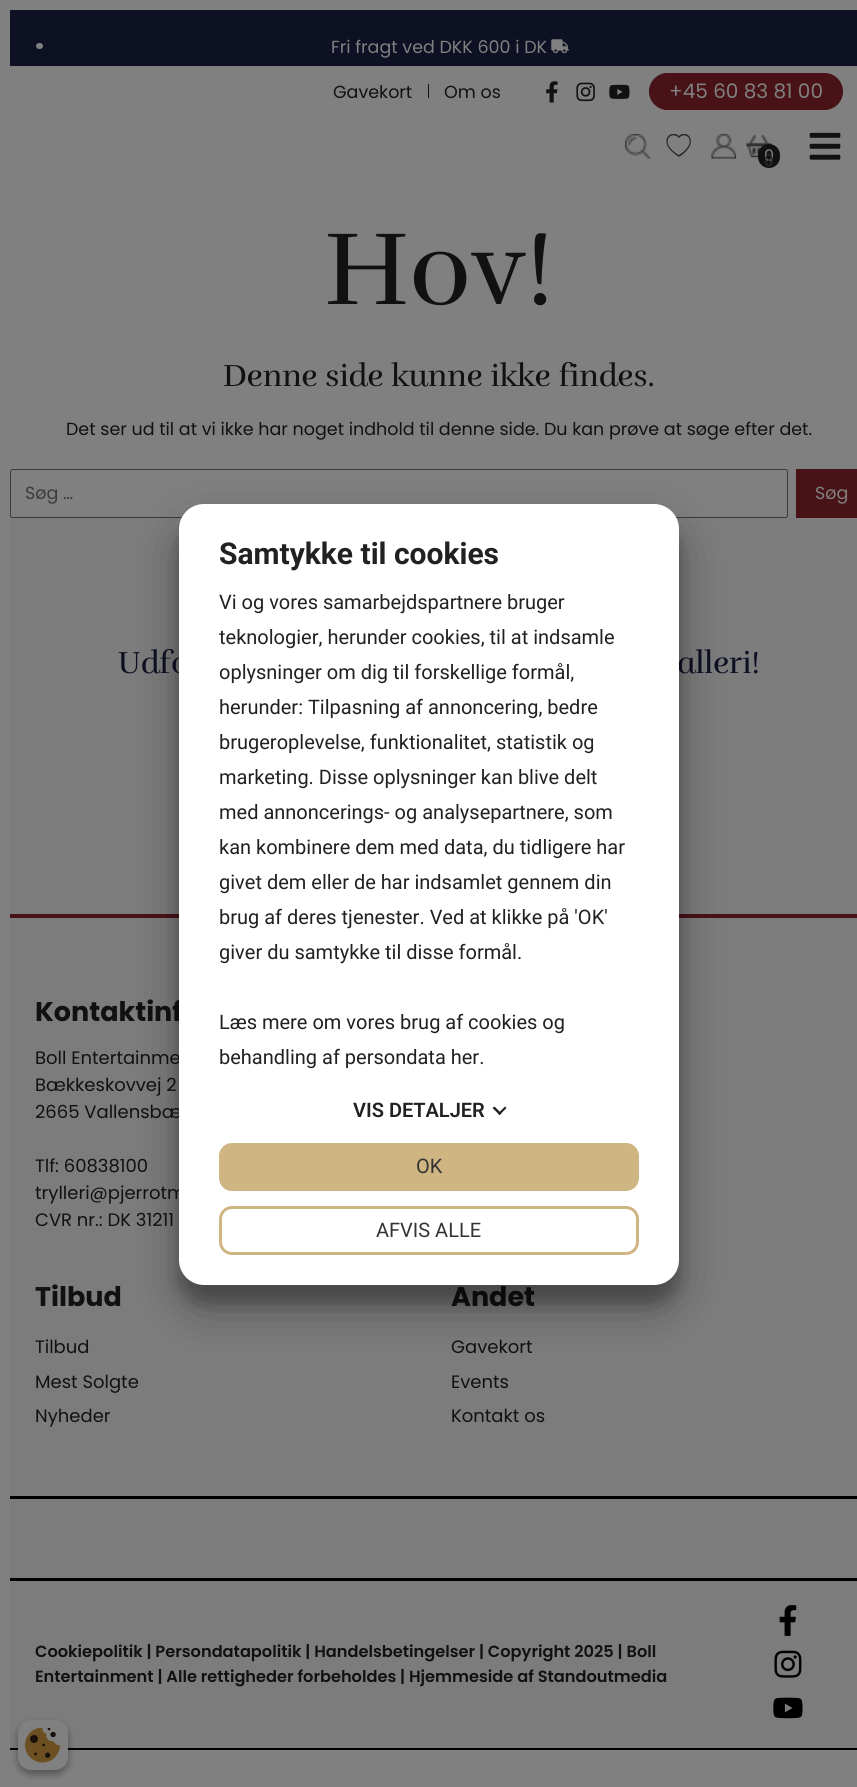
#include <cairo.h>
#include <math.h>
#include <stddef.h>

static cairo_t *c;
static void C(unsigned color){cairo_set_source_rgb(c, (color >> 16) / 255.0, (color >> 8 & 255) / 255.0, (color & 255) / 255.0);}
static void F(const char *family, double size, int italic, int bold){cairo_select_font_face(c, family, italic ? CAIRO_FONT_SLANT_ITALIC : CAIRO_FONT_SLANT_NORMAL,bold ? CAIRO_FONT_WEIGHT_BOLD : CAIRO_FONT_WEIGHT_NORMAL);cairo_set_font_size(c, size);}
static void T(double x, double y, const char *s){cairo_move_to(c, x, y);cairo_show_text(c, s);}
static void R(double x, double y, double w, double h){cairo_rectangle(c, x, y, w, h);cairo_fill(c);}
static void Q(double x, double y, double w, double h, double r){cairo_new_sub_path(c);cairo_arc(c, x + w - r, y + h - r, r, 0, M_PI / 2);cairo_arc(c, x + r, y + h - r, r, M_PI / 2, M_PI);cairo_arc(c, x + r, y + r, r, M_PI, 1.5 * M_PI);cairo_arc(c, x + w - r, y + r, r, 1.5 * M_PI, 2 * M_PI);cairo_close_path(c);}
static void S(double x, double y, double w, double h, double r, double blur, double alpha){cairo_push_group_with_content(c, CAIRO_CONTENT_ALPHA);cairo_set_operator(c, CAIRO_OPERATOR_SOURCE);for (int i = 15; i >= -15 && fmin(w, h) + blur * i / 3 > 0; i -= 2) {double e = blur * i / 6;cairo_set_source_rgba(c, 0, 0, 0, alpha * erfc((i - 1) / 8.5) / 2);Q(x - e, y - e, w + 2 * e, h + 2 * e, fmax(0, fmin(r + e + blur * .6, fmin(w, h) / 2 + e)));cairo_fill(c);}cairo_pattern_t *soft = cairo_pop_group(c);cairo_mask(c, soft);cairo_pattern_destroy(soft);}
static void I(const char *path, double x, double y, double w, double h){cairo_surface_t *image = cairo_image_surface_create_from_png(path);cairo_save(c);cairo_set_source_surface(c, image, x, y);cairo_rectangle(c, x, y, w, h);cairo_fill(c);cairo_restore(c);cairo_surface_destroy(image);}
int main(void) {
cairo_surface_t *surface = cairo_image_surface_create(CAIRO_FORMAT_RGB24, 857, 1787);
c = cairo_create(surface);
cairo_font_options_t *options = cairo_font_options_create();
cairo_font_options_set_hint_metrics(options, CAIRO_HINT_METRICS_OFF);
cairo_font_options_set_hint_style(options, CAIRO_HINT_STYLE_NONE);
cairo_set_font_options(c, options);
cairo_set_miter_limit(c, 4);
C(0x808080);
cairo_paint(c);
C(0x0e1023);
R(10,10,847,56);
C(0x808080);
Q(36,43,7,6,3);
cairo_fill(c);
F("Poppins",17.5,0,0);
T(331,53,"Fri fragt ved DKK 600 i DK");
I("1.png",551,39,18,15);
C(0x111111);
T(333,98,"Gavekort");
R(428,84,1,14);
T(444,98,"Om os");
I("2.png",546,81,12,22);
I("3.png",576,82,19,20);
I("4.png",609,84,21,15);
C(0x481217);
Q(649.5,73.5,193,36,18);
cairo_fill_preserve(c);
cairo_set_line_width(c,1);
cairo_stroke(c);
F("Poppins",20,0,0);
C(0x808080);
T(669,98,"+45 60 83 81 00");
I("5.png",625,133,25,26);
cairo_save(c);
cairo_rectangle(c,666,134,25,25);
cairo_clip(c);
C(0x292929);
cairo_new_path(c);
cairo_move_to(c,679,138);
cairo_curve_to(c,673,132,666,137,668,144);
cairo_curve_to(c,670,149,675,153,679,155);
cairo_curve_to(c,699,142,686,131,680,137);
cairo_close_path(c);
cairo_move_to(c,679,157);
cairo_curve_to(c,655,142,671,128,679,136);
cairo_curve_to(c,686,128,702,142,679,157);
cairo_fill(c);
cairo_restore(c);
I("6.png",711,133,26,26);
I("7.png",746,135,26,23);
C(0x111111);
Q(758,144,22,24,11);
cairo_fill(c);
F("Poppins",16,0,0);
C(0x808080);
T(764,161,"0");
F("DejaVu Sans Mono",16,0,0);
C(0x2c2c2c);
T(764,166,"0");
I("8.png",809,132,32,28);
F("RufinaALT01",105,0,0);
C(0x111111);
T(324,304,"Hov!");
F("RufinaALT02",31.25,0,0);
T(223,386,"Denne side kunne ikke findes.");
F("Poppins",17.5,0,0);
T(66,435,"Det ser ud til at vi ikke har noget indhold til denne side. Du kan prøve at søge efter det.");
Q(10.5,469.5,777,48,2);
C(0x3b3b3b);
cairo_stroke(c);
T(25,499,"Søg …");
C(0x481217);
R(796,469,61,49);
C(0x808080);
T(815,499,"Søg");
C(0x7c7c7c);
R(10,518,847,396);
F("RufinaALT02",31.25,0,0);
C(0x0d0f23);
T(118,673,"Udfo");
T(677,673,"alleri!");
C(0x7c7c7c);
R(10,918,847,830);
C(0x481217);
R(10,914,847,4);
C(0x000000);
R(10,1496,847,3);
F("Poppins",27,0,1);
C(0x111111);
T(35,1021,"Kontaktinf");
F("Poppins",18,0,0);
T(35,1064,"Boll Entertainme");
T(35,1091,"Bækkeskovvej 2");
T(35,1118,"2665 Vallensbæ");
T(35,1172,"Tlf: 60838100");
T(35,1199,"trylleri@pjerrotm");
T(35,1226,"CVR nr.: DK 31211");
F("Poppins",27,0,1);
T(35,1306,"Tilbud");
F("Poppins",18,0,0);
T(35,1353,"Tilbud");
T(35,1388,"Mest Solgte");
T(35,1422,"Nyheder");
F("Poppins",27,0,1);
T(451,1306,"Andet");
F("Poppins",18,0,0);
T(451,1353,"Gavekort");
T(451,1388,"Events");
T(451,1422,"Kontakt os");
C(0x000000);
R(10,1578,847,3);
R(10,1748,847,2);
F("Poppins SemiBold",16.2,0,0);
C(0x111111);
T(35,1657,"Cookiepolitik | Persondatapolitik | Handelsbetingelser | Copyright 2025 | Boll");
T(35,1682,"Entertainment | Alle rettigheder forbeholdes | Hjemmeside af Standoutmedia");
I("9.png",779,1605,18,31);
I("10.png",774,1650,28,28);
I("11.png",773,1697,30,22);
C(0x000000);
S(179,523,500,781,25,7.5,.22);
S(179,528,500,781,25,24,.3);
C(0xffffff);
Q(179,504,500,781,25);
cairo_fill(c);
F("Roboto",30,0,1);
C(0x212121);
T(219,564,"Samtykke til cookies");
F("Roboto",20,0,0);
T(219,609,"Vi og vores samarbejdspartnere bruger");
T(219,644,"teknologier, herunder cookies, til at indsamle");
T(219,679,"oplysninger om dig til forskellige formål,");
T(219,714,"herunder: Tilpasning af annoncering, bedre");
T(219,749,"brugeroplevelse, funktionalitet, statistik og");
T(219,784,"marketing. Disse oplysninger kan blive delt");
T(219,819,"med annoncerings- og analysepartnere, som");
T(219,854,"kan kombinere dem med data, du tidligere har");
T(219,889,"givet dem eller de har indsamlet gennem din");
T(219,924,"brug af deres tjenester. Ved at klikke på 'OK'");
T(219,959,"giver du samtykke til disse formål.");
T(219,1029,"Læs mere om vores brug af cookies og");
T(219,1064,"behandling af persondata her.");
F("Roboto SemiBold",20,0,0);
T(353,1117,"VIS DETALJER");
cairo_new_path(c);
cairo_move_to(c,505,1106.5);
cairo_line_to(c,506.5,1108);
cairo_line_to(c,499.5,1115);
cairo_line_to(c,498,1113.5);
cairo_close_path(c);
cairo_fill(c);
cairo_new_path(c);
cairo_move_to(c,494.5,1106.5);
cairo_line_to(c,501.5,1113.5);
cairo_line_to(c,499.5,1115);
cairo_line_to(c,492.5,1108);
cairo_close_path(c);
cairo_fill(c);
C(0xceb582);
Q(220.5,1144.5,417,45,11.5);
cairo_fill_preserve(c);
cairo_set_line_width(c,3);
cairo_stroke(c);
F("Roboto",20,0,0);
C(0x333333);
T(416,1173,"OK");
Q(220.5,1207.5,417,46,11.5);
C(0xceb582);
cairo_stroke(c);
C(0x333333);
T(376,1237,"AFVIS ALLE");
C(0x000000);
S(18,1724,50,50,13,4,.23);
S(18,1724,50,50,13,4,.16);
C(0x808080);
Q(18,1720,50,50,13);
cairo_fill(c);
I("12.png",25,1728,35,35);
cairo_surface_write_to_png(surface, "o.png");
cairo_font_options_destroy(options);
cairo_destroy(c);
cairo_surface_destroy(surface);
return 0;
}
